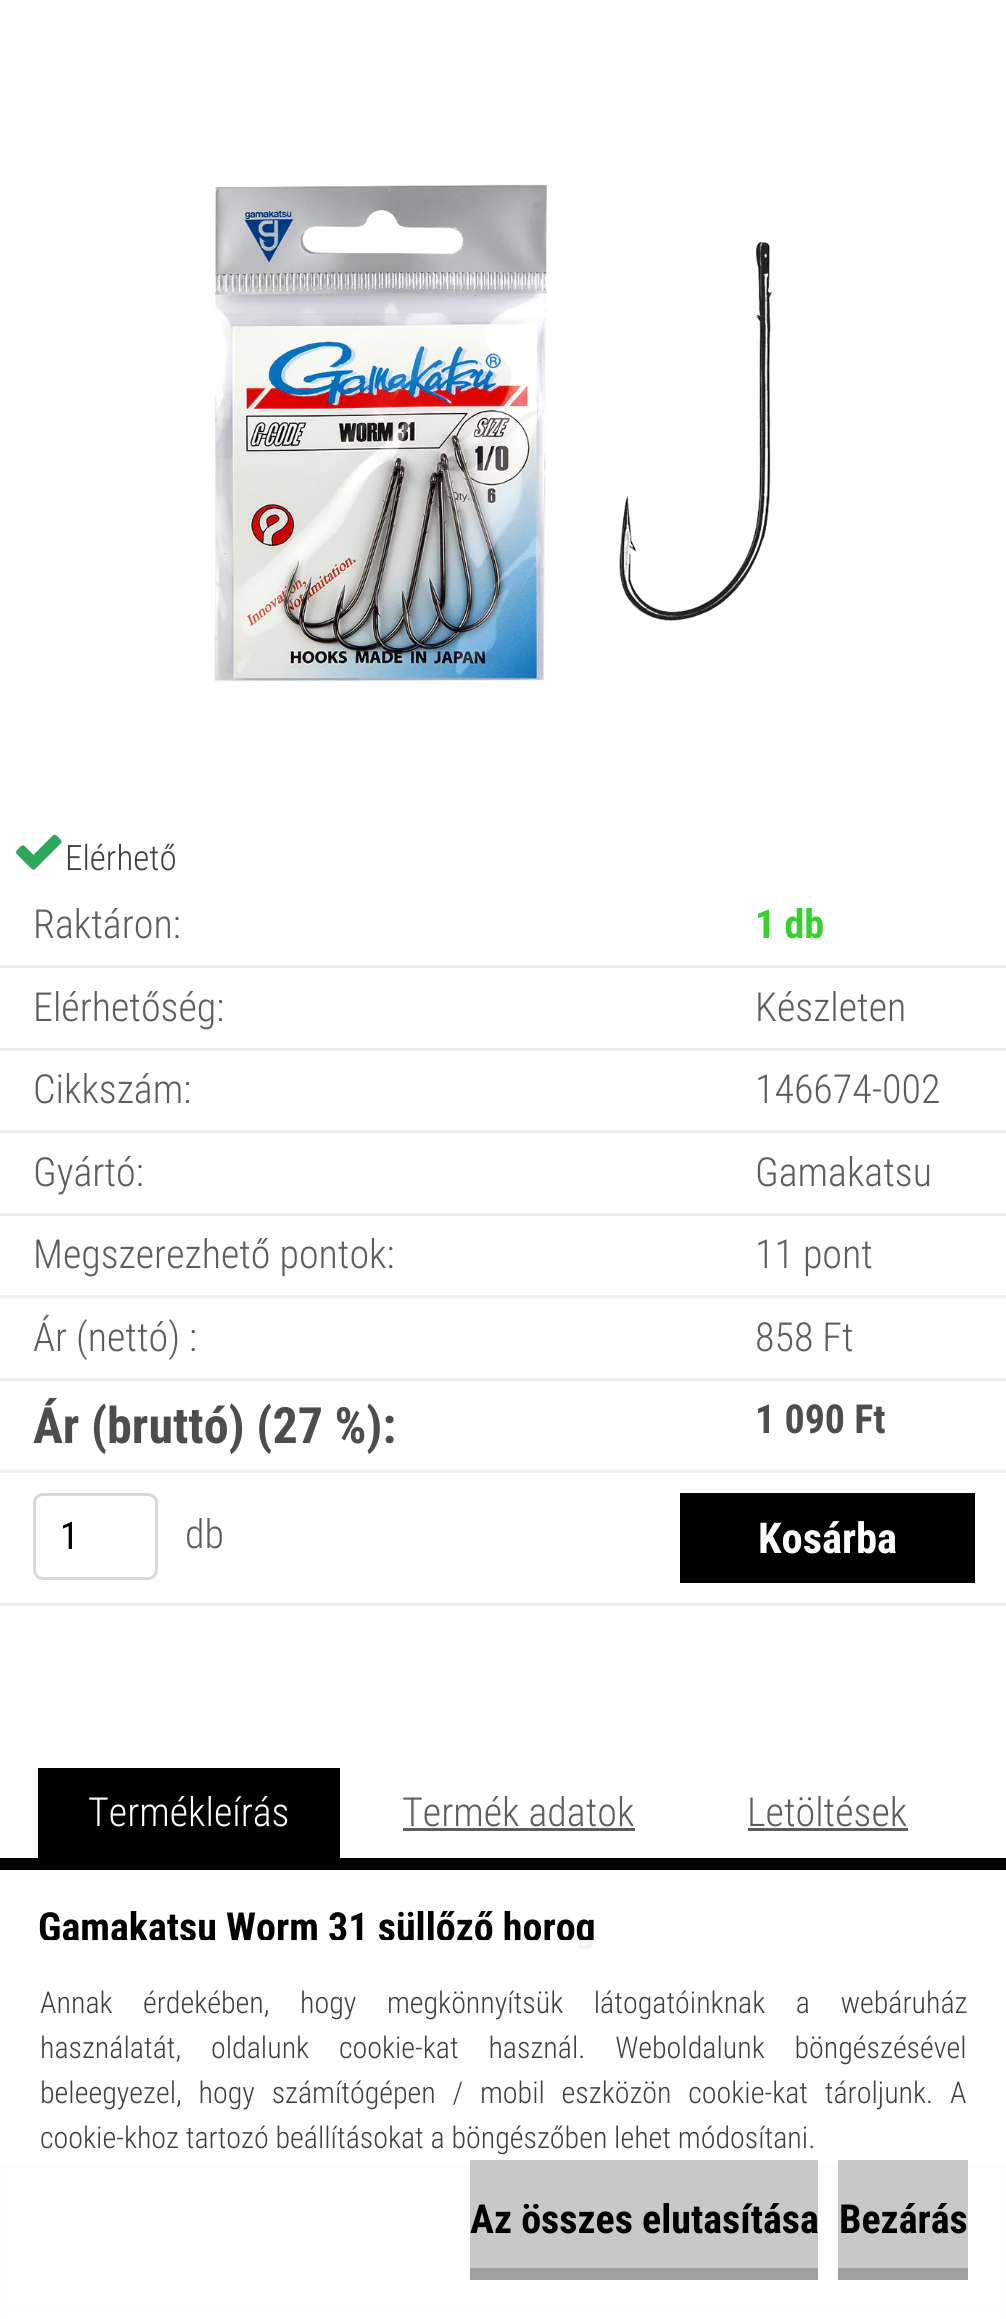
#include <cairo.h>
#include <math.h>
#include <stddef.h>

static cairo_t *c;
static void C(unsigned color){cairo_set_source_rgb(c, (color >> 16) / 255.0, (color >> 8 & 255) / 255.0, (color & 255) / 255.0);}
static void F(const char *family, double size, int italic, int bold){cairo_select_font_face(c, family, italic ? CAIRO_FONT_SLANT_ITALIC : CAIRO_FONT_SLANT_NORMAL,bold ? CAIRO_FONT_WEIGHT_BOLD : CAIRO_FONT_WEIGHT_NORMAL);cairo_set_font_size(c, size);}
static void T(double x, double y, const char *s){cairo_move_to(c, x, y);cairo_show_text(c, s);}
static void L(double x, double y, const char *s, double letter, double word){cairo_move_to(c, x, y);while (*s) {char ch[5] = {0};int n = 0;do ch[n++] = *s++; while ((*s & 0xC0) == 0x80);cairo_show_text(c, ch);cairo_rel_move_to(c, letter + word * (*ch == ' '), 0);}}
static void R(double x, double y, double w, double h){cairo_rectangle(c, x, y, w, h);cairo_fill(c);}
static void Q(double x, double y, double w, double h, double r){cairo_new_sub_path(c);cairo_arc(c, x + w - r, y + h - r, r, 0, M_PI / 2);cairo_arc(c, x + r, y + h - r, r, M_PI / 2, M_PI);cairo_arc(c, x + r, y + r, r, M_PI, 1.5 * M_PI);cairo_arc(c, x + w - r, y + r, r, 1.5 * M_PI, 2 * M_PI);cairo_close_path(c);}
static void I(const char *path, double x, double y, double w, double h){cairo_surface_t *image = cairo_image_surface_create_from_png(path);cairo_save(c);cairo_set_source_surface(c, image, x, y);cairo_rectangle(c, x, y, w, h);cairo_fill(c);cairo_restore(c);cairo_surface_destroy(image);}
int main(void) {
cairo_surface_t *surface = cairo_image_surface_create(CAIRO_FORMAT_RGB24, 1006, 2319);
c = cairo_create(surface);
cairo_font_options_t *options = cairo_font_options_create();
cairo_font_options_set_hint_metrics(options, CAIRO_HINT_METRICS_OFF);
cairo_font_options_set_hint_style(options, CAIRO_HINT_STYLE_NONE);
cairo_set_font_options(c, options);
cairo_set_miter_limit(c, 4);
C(0xffffff);
cairo_paint(c);
I("1.png",214,184,558,498);
I("2.png",16,834,46,36);
F("Roboto Condensed Light",35,0,0);
C(0x3f3f3f);
T(65,870,"Elérhető");
C(0xeeeeee);
R(0,965,1006,3);
F("Roboto Condensed Light",40,0,0);
C(0x5d5d5d);
T(33,938,"Raktáron:");
F("Roboto Condensed",40,0,1);
C(0x34d22f);
T(755,938,"1 db");
C(0xeeeeee);
R(0,1048,1006,3);
F("Roboto Condensed Light",40,0,0);
C(0x5d5d5d);
T(33,1021,"Elérhetőség:");
T(755,1021,"Készleten");
C(0xeeeeee);
R(0,1130,1006,3);
C(0x5d5d5d);
T(33,1103,"Cikkszám:");
T(755,1103,"146674-002");
C(0xeeeeee);
R(0,1213,1006,3);
C(0x5d5d5d);
T(33,1186,"Gyártó:");
T(755,1186,"Gamakatsu");
C(0xeeeeee);
R(0,1295,1006,3);
C(0x5d5d5d);
T(33,1268,"Megszerezhető pontok:");
T(755,1268,"11 pont");
C(0xeeeeee);
R(0,1378,1006,3);
C(0x5d5d5d);
T(33,1351,"Ár (nettó) :");
T(755,1351,"858 Ft");
C(0xeeeeee);
R(0,1470,1006,3);
F("Roboto Condensed",50,0,1);
C(0x4d4d4d);
T(33,1443,"Ár (bruttó) (27 %):");
F("Roboto Condensed",40,0,1);
T(755,1433,"1 090 Ft");
C(0xeeeeee);
R(0,1603,1006,3);
Q(34.5,1494.5,122,84,8.5);
C(0xd9d9d9);
cairo_set_line_width(c,3);
cairo_stroke(c);
F("Roboto Condensed",38,0,0);
C(0x000000);
T(60,1549,"1");
F("Roboto Condensed Light",40,0,0);
C(0x5d5d5d);
T(185,1548,"db");
C(0x000000);
R(680,1493,295,90);
F("Roboto Condensed",42.5,0,1);
C(0xffffff);
T(758,1553,"Kosárba");
C(0x000000);
R(0,1858,1006,12);
R(38,1768,302,90);
F("Roboto Condensed Light",40,0,0);
C(0xffffff);
T(88,1826,"Termékleírás");
C(0x5d5d5d);
T(402,1826,"Termék adatok");
R(403,1828,232,3);
T(747,1826,"Letöltések");
R(748,1828,160,3);
F("Roboto Condensed",40,0,1);
C(0x000000);
T(38,1941,"Gamakatsu Worm 31 süllőző horog");
C(0xf4f4f4);
R(3,2168,1002,151);
C(0xd9d9d9);
R(0,2165,1006,3);
R(3,2308,1003,3);
R(1005,2165,1,154);
R(0,2165,3,154);
cairo_set_source_rgba(c,1,1,1,0.95);
R(0,1940,1006,379);
F("Roboto Condensed Light",30,0,0);
C(0x3f3f3f);
L(40,2013,"Annak érdekében, hogy megkönnyítsük látogatóinknak a webáruház",0,23.75);
L(40,2058,"használatát, oldalunk cookie-kat használ. Weboldalunk böngészésével",0,23);
L(40,2103,"beleegyezel, hogy számítógépen / mobil eszközön cookie-kat tároljunk. A",0,10);
T(40,2148,"cookie-khoz tartozó beállításokat a böngészőben lehet módosítani.");
C(0xc8c8c8);
R(470,2160,348,108);
C(0xa0a0a0);
R(470,2268,348,12);
F("Roboto Condensed",40,0,1);
C(0x000000);
T(470,2233,"Az összes elutasítása");
C(0xc8c8c8);
R(838,2160,130,108);
C(0xa0a0a0);
R(838,2268,130,12);
C(0x000000);
T(839,2233,"Bezárás");
cairo_surface_write_to_png(surface, "o.png");
cairo_font_options_destroy(options);
cairo_destroy(c);
cairo_surface_destroy(surface);
return 0;
}
